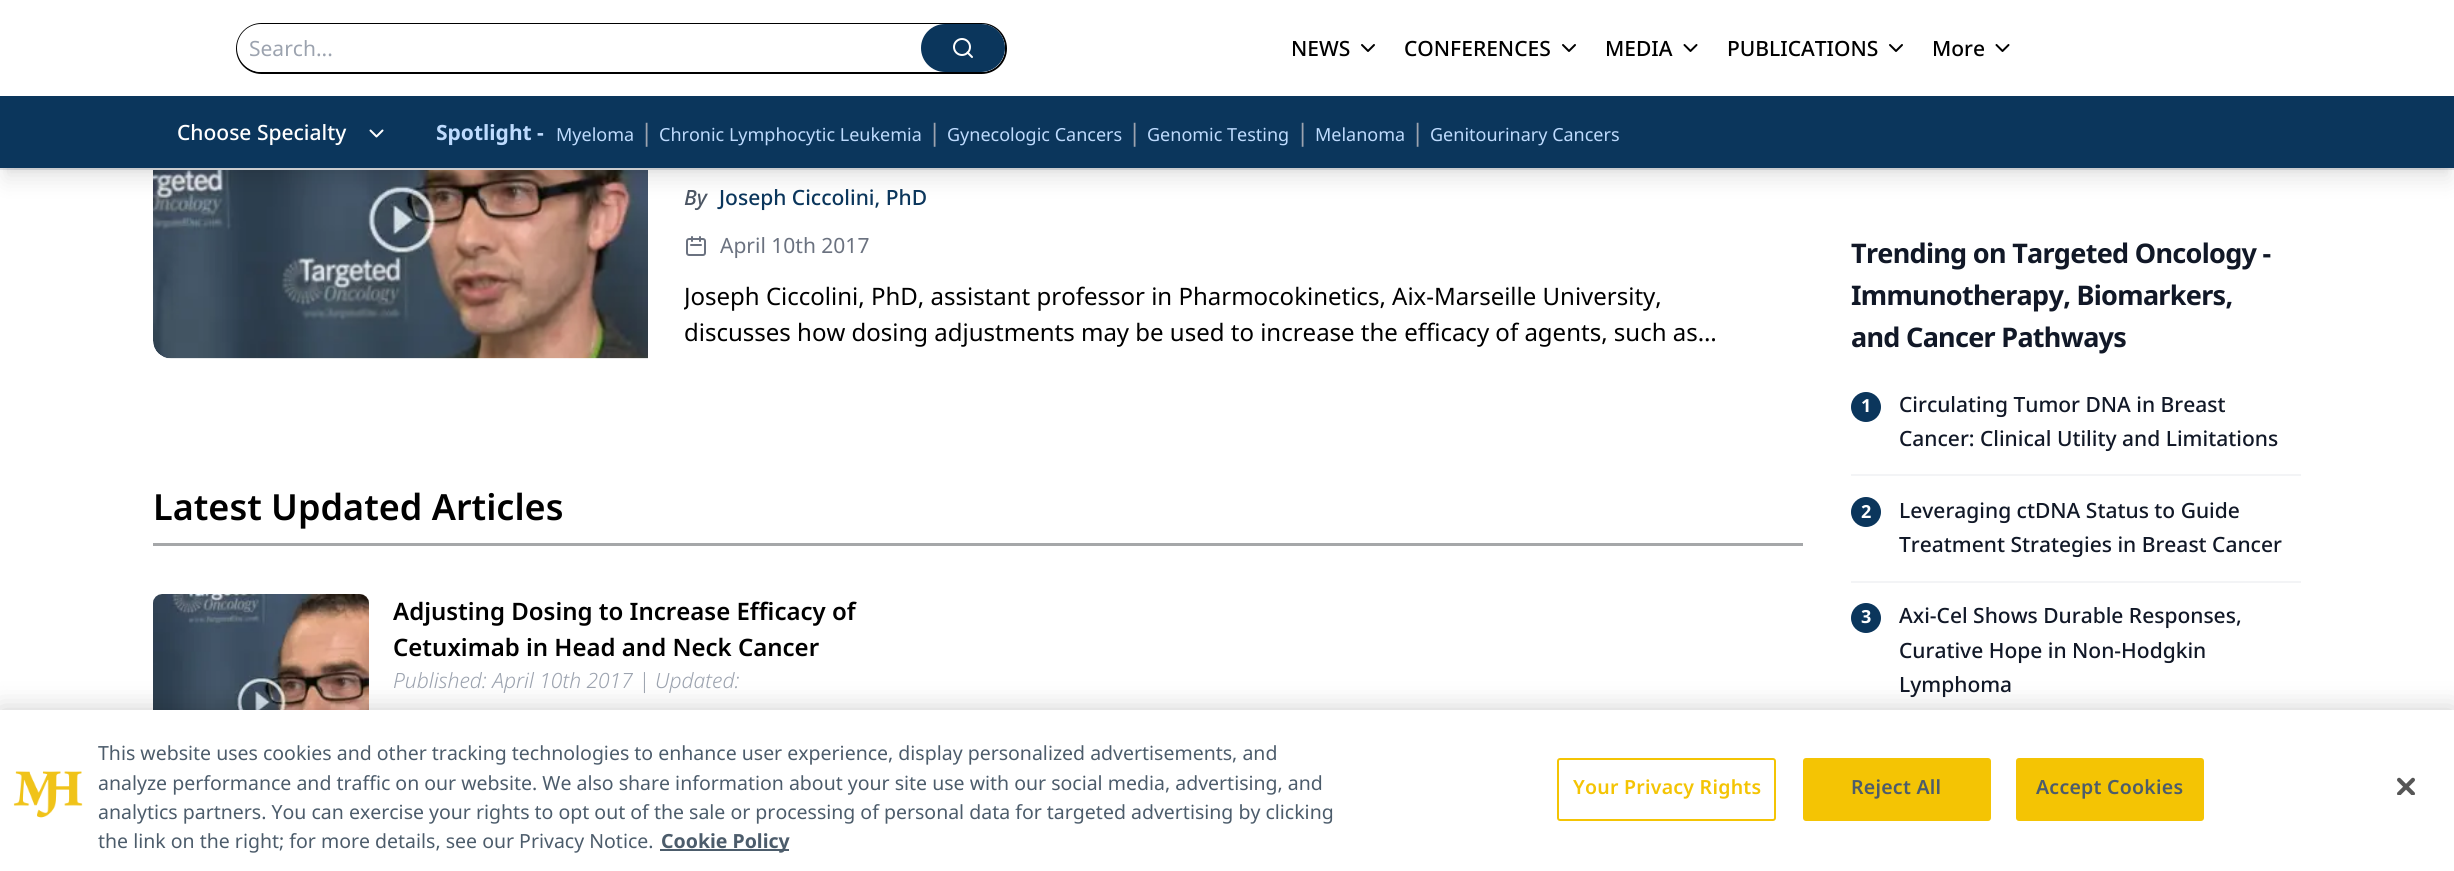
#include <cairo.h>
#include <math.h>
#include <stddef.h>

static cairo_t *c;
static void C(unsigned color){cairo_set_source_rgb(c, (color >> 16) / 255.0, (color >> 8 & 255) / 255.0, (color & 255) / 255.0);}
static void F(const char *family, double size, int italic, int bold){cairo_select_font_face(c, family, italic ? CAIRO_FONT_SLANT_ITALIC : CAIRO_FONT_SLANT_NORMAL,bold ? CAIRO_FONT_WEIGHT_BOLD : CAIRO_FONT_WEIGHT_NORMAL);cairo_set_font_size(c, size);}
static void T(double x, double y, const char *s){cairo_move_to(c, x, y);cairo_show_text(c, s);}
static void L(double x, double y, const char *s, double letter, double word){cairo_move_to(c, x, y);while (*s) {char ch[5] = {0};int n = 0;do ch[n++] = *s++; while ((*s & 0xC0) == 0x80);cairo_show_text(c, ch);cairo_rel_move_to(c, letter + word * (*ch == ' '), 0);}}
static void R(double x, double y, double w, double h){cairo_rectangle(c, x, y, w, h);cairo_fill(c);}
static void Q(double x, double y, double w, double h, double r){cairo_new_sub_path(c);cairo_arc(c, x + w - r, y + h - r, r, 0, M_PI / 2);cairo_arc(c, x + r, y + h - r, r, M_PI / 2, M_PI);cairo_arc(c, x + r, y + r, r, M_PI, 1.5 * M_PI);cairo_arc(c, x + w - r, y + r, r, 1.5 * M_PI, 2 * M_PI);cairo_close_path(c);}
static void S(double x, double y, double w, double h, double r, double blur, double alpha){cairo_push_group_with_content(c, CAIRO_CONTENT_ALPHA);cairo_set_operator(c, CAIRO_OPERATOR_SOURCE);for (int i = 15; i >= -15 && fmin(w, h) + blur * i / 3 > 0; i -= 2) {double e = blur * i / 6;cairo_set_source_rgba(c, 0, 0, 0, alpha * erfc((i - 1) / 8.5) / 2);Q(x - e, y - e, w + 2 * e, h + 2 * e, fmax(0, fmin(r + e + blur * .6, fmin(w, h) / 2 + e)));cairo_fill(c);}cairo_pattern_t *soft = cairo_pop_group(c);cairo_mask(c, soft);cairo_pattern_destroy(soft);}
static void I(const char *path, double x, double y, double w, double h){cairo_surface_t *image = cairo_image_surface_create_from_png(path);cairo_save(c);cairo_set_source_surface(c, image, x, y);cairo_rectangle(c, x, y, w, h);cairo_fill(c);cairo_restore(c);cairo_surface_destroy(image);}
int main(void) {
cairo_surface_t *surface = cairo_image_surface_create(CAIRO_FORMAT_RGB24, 2454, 871);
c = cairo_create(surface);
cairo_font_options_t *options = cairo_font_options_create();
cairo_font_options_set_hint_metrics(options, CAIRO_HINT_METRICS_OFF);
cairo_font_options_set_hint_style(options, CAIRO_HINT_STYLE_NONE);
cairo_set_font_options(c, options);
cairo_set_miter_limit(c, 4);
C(0xffffff);
cairo_paint(c);
C(0xe5e7eb);
R(0,168,2454,2);
Q(237,24,769,49,24.5);
C(0x000000);
cairo_stroke(c);
C(0xffffff);
Q(237,24,768,48,24);
cairo_fill(c);
F("Noto Sans",21,0,0);
C(0x9ca3af);
T(249,56,"Search...");
C(0x0b365c);
Q(921,24,84,48,24);
cairo_fill(c);
cairo_arc(c,962,47,8,0,2 * M_PI);
C(0xffffff);
cairo_stroke(c);
cairo_new_path(c);
cairo_move_to(c,972,57);
cairo_line_to(c,967.5,52.5);
cairo_set_line_cap(c,CAIRO_LINE_CAP_ROUND);
cairo_set_line_join(c,CAIRO_LINE_JOIN_ROUND);
cairo_stroke(c);
F("Noto Sans Medium",21,0,0);
C(0x000000);
T(1291,56,"NEWS");
cairo_new_path(c);
cairo_move_to(c,1362,45);
cairo_line_to(c,1368,51);
cairo_line_to(c,1374,45);
cairo_stroke(c);
T(1404,56,"CONFERENCES");
cairo_new_path(c);
cairo_move_to(c,1563,45);
cairo_line_to(c,1569,51);
cairo_line_to(c,1575,45);
cairo_stroke(c);
T(1605,56,"MEDIA");
cairo_new_path(c);
cairo_move_to(c,1684.5,45);
cairo_line_to(c,1690.5,51);
cairo_line_to(c,1696.5,45);
cairo_stroke(c);
T(1727,56,"PUBLICATIONS");
cairo_new_path(c);
cairo_move_to(c,1890,45);
cairo_line_to(c,1896,51);
cairo_line_to(c,1902,45);
cairo_stroke(c);
T(1932,56,"More");
cairo_new_path(c);
cairo_move_to(c,1996.5,45);
cairo_line_to(c,2002.5,51);
cairo_line_to(c,2008.5,45);
cairo_stroke(c);
I("1.png",153,170,495,189);
C(0x000000);
S(6,108,2442,60,0,4.5,.1);
S(5,116,2445,63,0,11,.1);
C(0x0b365c);
R(0,96,2454,72);
C(0xffffff);
T(177,140,"Choose Specialty");
cairo_new_path(c);
cairo_move_to(c,370.5,130.5);
cairo_line_to(c,376.5,136.5);
cairo_line_to(c,382.5,130.5);
cairo_stroke(c);
F("Noto Sans",21,0,1);
C(0xbedbfe);
T(436,140,"Spotlight -");
F("Noto Sans",18,0,0);
T(556,141,"Myeloma");
F("Noto Sans",24,0,0);
C(0x9ca3af);
T(640,141,"|");
F("Noto Sans",18,0,0);
C(0xbedbfe);
T(659,141,"Chronic Lymphocytic Leukemia");
F("Noto Sans",24,0,0);
C(0x9ca3af);
T(928,141,"|");
F("Noto Sans",18,0,0);
C(0xbedbfe);
T(947,141,"Gynecologic Cancers");
F("Noto Sans",24,0,0);
C(0x9ca3af);
T(1128,141,"|");
F("Noto Sans",18,0,0);
C(0xbedbfe);
T(1147,141,"Genomic Testing");
F("Noto Sans",24,0,0);
C(0x9ca3af);
T(1296,141,"|");
F("Noto Sans",18,0,0);
C(0xbedbfe);
T(1315,141,"Melanoma");
F("Noto Sans",24,0,0);
C(0x9ca3af);
T(1411,141,"|");
F("Noto Sans",18,0,0);
C(0xbedbfe);
T(1430,141,"Genitourinary Cancers");
F("Noto Sans Medium",21,1,0);
C(0x4b5563);
T(684,205,"By");
F("Noto Sans Medium",21,0,0);
C(0x0b365c);
T(719,205,"Joseph Ciccolini, PhD");
I("2.png",686,236,20,20);
F("Noto Sans",21,0,0);
C(0x6b7280);
T(720,253,"April 10th 2017");
cairo_save(c);
cairo_rectangle(c,684,279,1083,72);
cairo_clip(c);
F("Noto Sans",24,0,0);
C(0x000000);
T(684,305,"Joseph Ciccolini, PhD, assistant professor in Pharmocokinetics, Aix-Marseille University,");
cairo_restore(c);
F("Noto Sans",24,0,0);
C(0x000000);
T(684,341,"discusses how dosing adjustments may be used to increase the efficacy of agents, such as…");
C(0xa5a7a9);
R(153,543,1650,3);
F("Noto Sans SemiBold",36,0,0);
C(0x000000);
T(153,520,"Latest Updated Articles");
I("3.png",153,594,216,116);
F("Noto Sans SemiBold",24,0,0);
T(393,620,"Adjusting Dosing to Increase Efficacy of");
T(393,656,"Cetuximab in Head and Neck Cancer");
F("Noto Sans Light",21,1,0);
C(0x9ca3af);
T(393,688,"Published: April 10th 2017 | Updated:");
F("Noto Sans",27,0,1);
C(0x111827);
L(1851,263,"Trending on Targeted Oncology -",-.7,0);
L(1851,305,"Immunotherapy, Biomarkers,",-.7,0);
L(1851,347,"and Cancer Pathways",-.7,0);
C(0x0b365c);
cairo_new_path(c);
cairo_arc(c,1866,407,15,0,2 * M_PI);
cairo_fill(c);
F("Noto Sans",18,0,1);
C(0xffffff);
T(1861,412,"1");
F("Noto Sans Medium",21,0,0);
C(0x111827);
T(1899,412,"Circulating Tumor DNA in Breast");
T(1899,446,"Cancer: Clinical Utility and Limitations");
C(0xf3f4f6);
R(1851,474,450,2);
C(0x0b365c);
cairo_new_path(c);
cairo_arc(c,1866,512,15,0,2 * M_PI);
cairo_fill(c);
F("Noto Sans",18,0,1);
C(0xffffff);
T(1861,518,"2");
F("Noto Sans Medium",21,0,0);
C(0x111827);
T(1899,518,"Leveraging ctDNA Status to Guide");
T(1899,552,"Treatment Strategies in Breast Cancer");
C(0xf3f4f6);
R(1851,581,450,2);
C(0x0b365c);
cairo_new_path(c);
cairo_arc(c,1866,618,15,0,2 * M_PI);
cairo_fill(c);
F("Noto Sans",18,0,1);
C(0xffffff);
T(1861,623,"3");
F("Noto Sans Medium",21,0,0);
C(0x111827);
T(1899,623,"Axi-Cel Shows Durable Responses,");
T(1899,658,"Curative Hope in Non-Hodgkin");
T(1899,692,"Lymphoma");
C(0x000000);
S(0,710,2454,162,0,13.5,.2);
C(0xffffff);
R(0,710,2454,161);
I("4.png",13,771,70,47);
F("Noto Sans",19.5,0,0);
C(0x4c5c6b);
T(98,760,"This website uses cookies and other tracking technologies to enhance user experience, display personalized advertisements, and");
T(98,790,"analyze performance and traffic on our website. We also share information about your site use with our social media, advertising, and");
T(98,819,"analytics partners. You can exercise your rights to opt out of the sale or processing of personal data for targeted advertising by clicking");
T(98,848,"the link on the right; for more details, see our Privacy Notice.");
R(660,849,129,2);
F("Noto Sans",19.5,0,1);
T(661,848,"Cookie Policy");
Q(1558,759,217,61,2);
C(0xf4c404);
cairo_set_line_cap(c,CAIRO_LINE_CAP_BUTT);
cairo_set_line_join(c,CAIRO_LINE_JOIN_MITER);
cairo_stroke(c);
F("Noto Sans SemiBold",19.5,0,0);
L(1573,794,"Your Privacy Rights",.25,0);
Q(1804,759,186,61,2);
cairo_fill_preserve(c);
cairo_stroke(c);
C(0x4c5c6b);
L(1851,794,"Reject All",.25,0);
C(0xf4c404);
Q(2017,759,186,61,2);
cairo_fill_preserve(c);
cairo_stroke(c);
C(0x4c5c6b);
L(2036,794,"Accept Cookies",.25,0);
I("5.png",2397,777,18,18);
cairo_surface_write_to_png(surface, "o.png");
cairo_font_options_destroy(options);
cairo_destroy(c);
cairo_surface_destroy(surface);
return 0;
}
